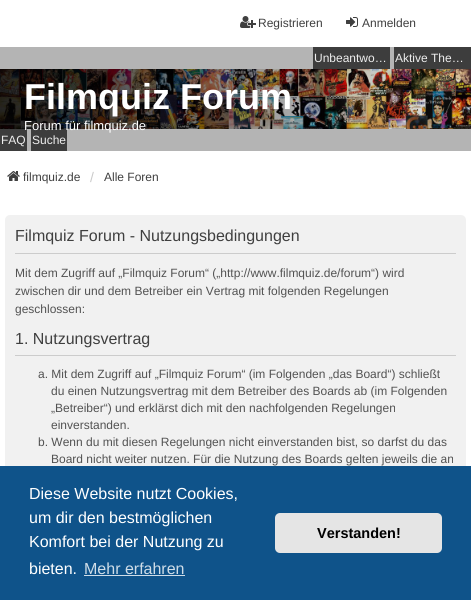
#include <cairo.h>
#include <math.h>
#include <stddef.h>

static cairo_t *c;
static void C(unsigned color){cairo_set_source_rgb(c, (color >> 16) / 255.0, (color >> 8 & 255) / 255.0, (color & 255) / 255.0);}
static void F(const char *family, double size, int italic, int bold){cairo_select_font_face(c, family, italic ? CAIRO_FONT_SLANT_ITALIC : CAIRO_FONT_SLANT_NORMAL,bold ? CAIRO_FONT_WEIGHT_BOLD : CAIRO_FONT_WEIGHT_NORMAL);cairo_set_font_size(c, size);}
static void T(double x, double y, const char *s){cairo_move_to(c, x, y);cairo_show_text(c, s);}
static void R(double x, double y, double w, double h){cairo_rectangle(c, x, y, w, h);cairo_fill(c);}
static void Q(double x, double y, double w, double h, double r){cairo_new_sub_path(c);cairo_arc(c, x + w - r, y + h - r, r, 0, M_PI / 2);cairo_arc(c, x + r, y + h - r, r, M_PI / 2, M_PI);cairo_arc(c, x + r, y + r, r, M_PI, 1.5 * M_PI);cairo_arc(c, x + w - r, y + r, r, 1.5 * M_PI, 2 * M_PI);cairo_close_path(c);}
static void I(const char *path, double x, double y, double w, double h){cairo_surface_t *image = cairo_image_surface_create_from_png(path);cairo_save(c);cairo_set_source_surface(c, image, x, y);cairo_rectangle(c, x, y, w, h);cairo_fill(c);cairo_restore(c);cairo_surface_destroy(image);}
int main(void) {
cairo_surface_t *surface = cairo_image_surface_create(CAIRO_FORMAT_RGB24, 471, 600);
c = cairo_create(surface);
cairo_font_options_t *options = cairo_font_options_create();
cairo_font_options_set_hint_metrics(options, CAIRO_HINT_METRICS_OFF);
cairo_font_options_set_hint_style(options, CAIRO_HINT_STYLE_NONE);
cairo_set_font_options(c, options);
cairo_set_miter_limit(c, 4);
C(0xffffff);
cairo_paint(c);
I("1.png",240,16,16,12);
F("Liberation Sans",12,0,0);
C(0x3f3f3f);
T(258,27,"Registrieren");
I("2.png",346,17,12,10);
T(362,27,"Anmelden");
C(0xb4b4b4);
R(0,47,471,104);
C(0x3d3d3d);
R(313,47,77,22);
C(0xeeeeee);
T(314,62,"Unbeantwo…");
C(0x3d3d3d);
R(394,47,77,22);
C(0xeeeeee);
T(395,62,"Aktive The…");
I("3.png",0,69,471,60);
F("Liberation Sans",36,0,1);
C(0xffffff);
T(24,109,"Filmquiz Forum");
C(0x3d3d3d);
R(0,129,27,22);
R(31,129,36,22);
F("Liberation Sans",13,0,0);
C(0xffffff);
T(24,130,"Forum für filmquiz.de");
F("Liberation Sans",12,0,0);
C(0xeeeeee);
T(1,144,"FAQ");
T(32,144,"Suche");
I("4.png",7,171,13,10);
C(0x3f3f3f);
T(23,181,"filmquiz.de");
F("Liberation Sans",14,0,0);
C(0xcacaca);
T(90,182,"/");
F("Liberation Sans",12,0,0);
C(0x3f3f3f);
T(104,181,"Alle Foren");
C(0xf1f1f1);
Q(5,215,461,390,5);
cairo_fill(c);
C(0xcccccc);
R(15,253,441,1);
F("Liberation Sans",16,0,0);
C(0x3f3f3f);
T(15,241,"Filmquiz Forum - Nutzungsbedingungen");
F("Liberation Sans",12,0,0);
C(0x525252);
T(15,277,"Mit dem Zugriff auf „Filmquiz Forum“ („http://www.filmquiz.de/forum“) wird");
T(15,295,"zwischen dir und dem Betreiber ein Vertrag mit folgenden Regelungen");
T(15,313,"geschlossen:");
C(0xcccccc);
R(15,355,441,1);
F("Liberation Sans",16,0,0);
C(0x3f3f3f);
T(15,344,"1. Nutzungsvertrag");
F("Liberation Sans",12,0,0);
C(0x525252);
T(38,378,"a. Mit dem Zugriff auf „Filmquiz Forum“ (im Folgenden „das Board“) schließt");
T(51,395,"du einen Nutzungsvertrag mit dem Betreiber des Boards ab (im Folgenden");
T(51,412,"„Betreiber“) und erklärst dich mit den nachfolgenden Regelungen");
T(51,429,"einverstanden.");
T(38,446,"b. Wenn du mit diesen Regelungen nicht einverstanden bist, so darfst du das");
T(51,463,"Board nicht weiter nutzen. Für die Nutzung des Boards gelten jeweils die an");
C(0x0f538a);
R(0,466,471,134);
F("Liberation Sans",16,0,0);
C(0xffffff);
T(29,499,"Diese Website nutzt Cookies,");
T(29,523,"um dir den bestmöglichen");
T(29,547,"Komfort bei der Nutzung zu");
T(29,574,"bieten.");
C(0xcfdde8);
T(84,574,"Mehr erfahren");
R(84,575,101,1);
C(0xe5e5e5);
Q(275,513,167,40,5);
cairo_fill(c);
F("Liberation Sans",14.5,0,1);
C(0x000000);
T(317,538,"Verstanden!");
cairo_surface_write_to_png(surface, "o.png");
cairo_font_options_destroy(options);
cairo_destroy(c);
cairo_surface_destroy(surface);
return 0;
}
